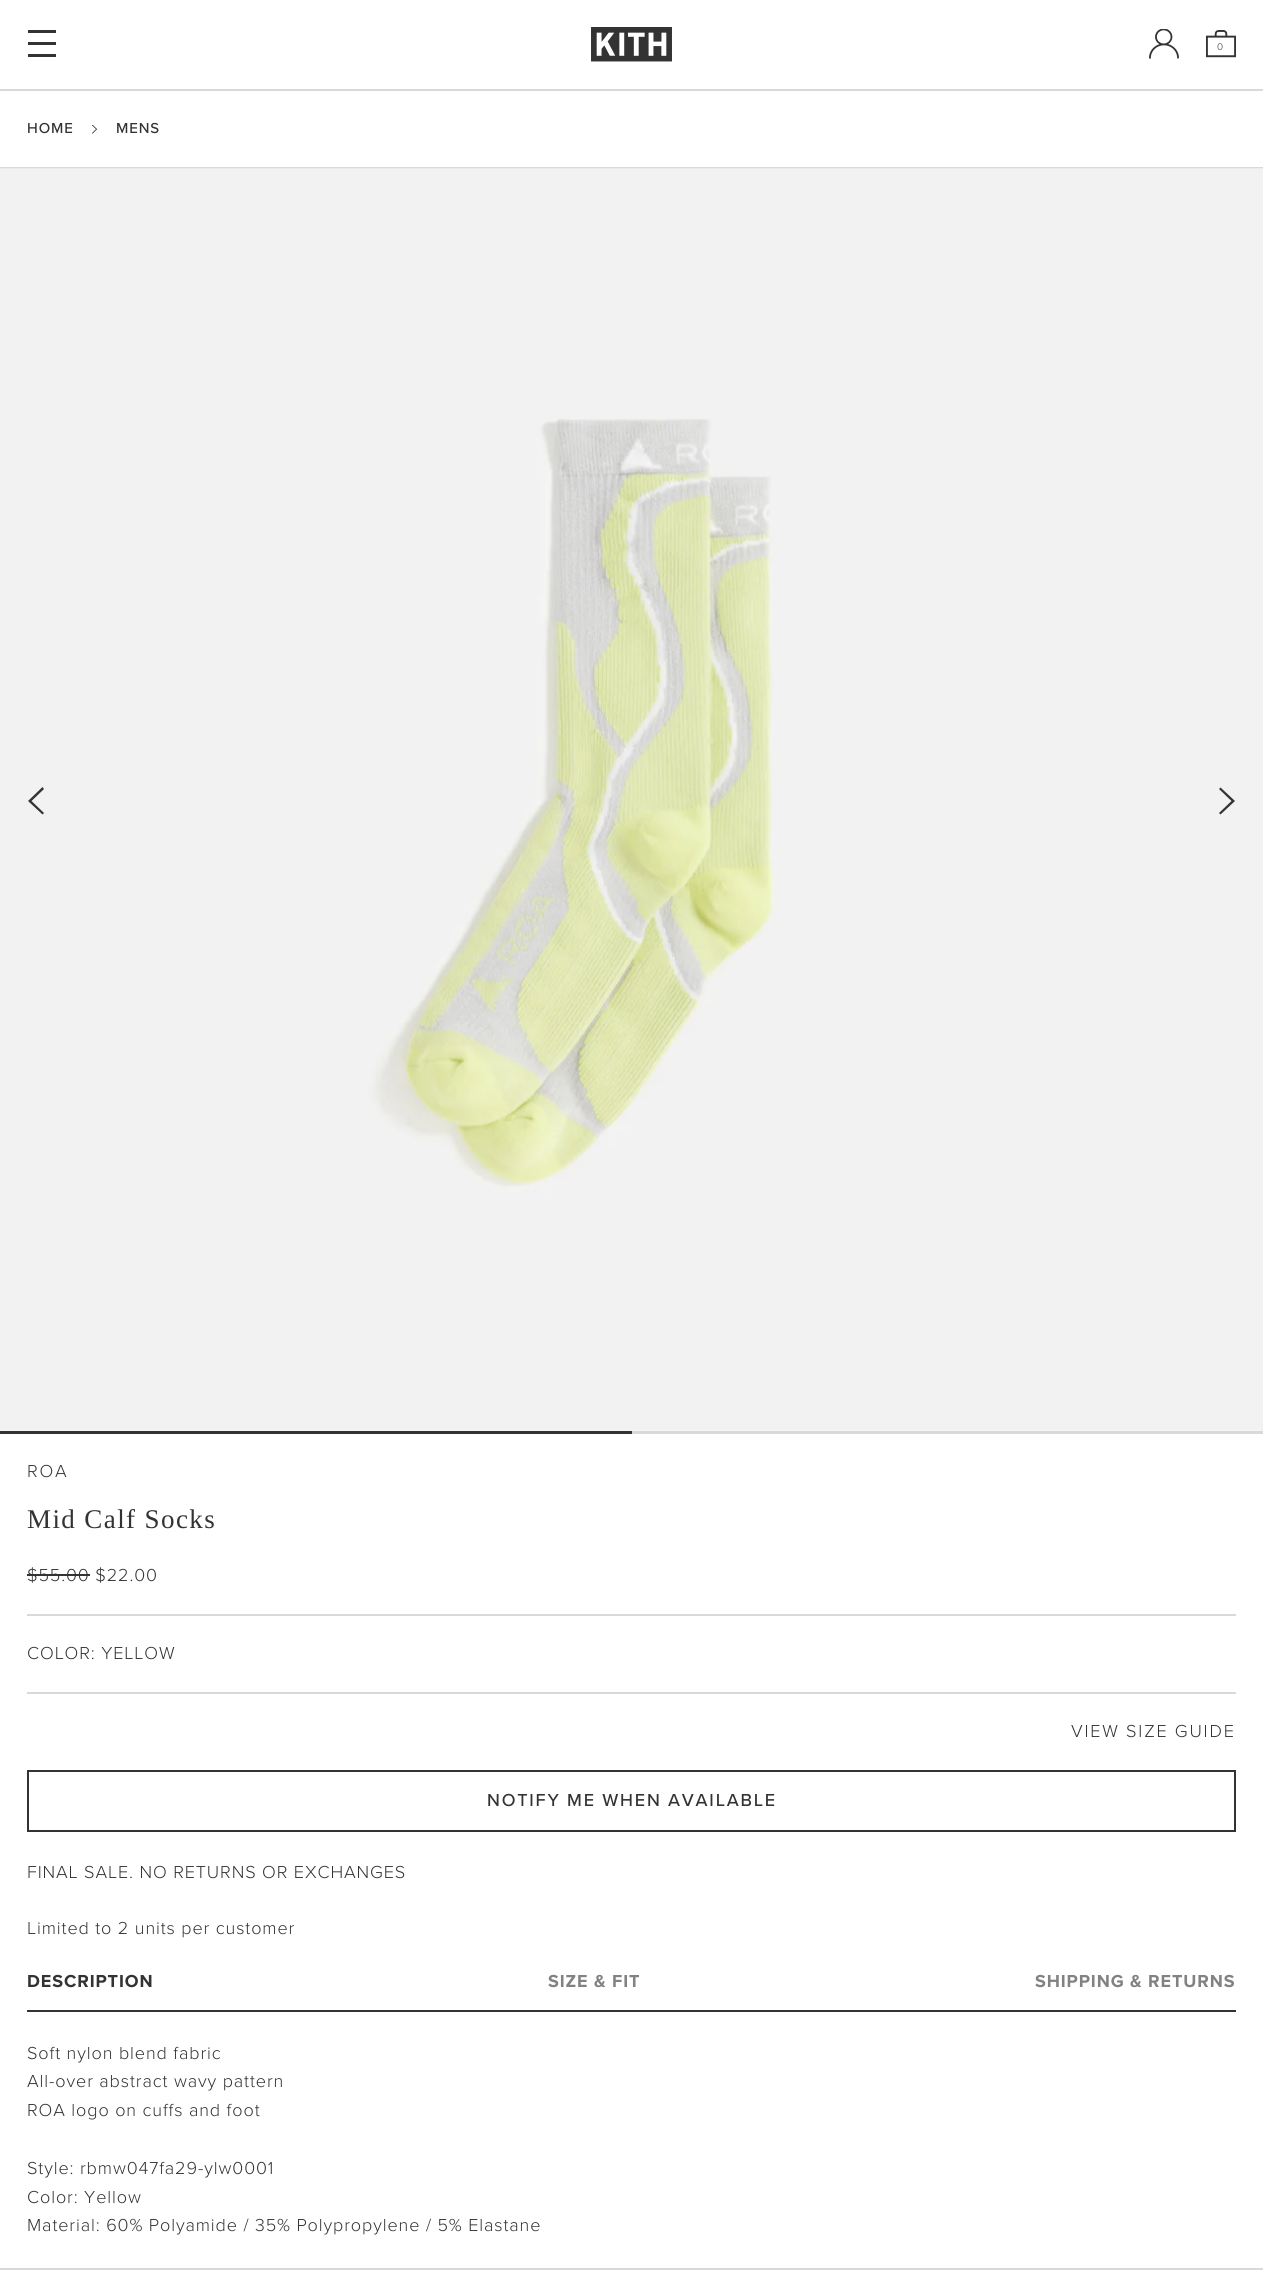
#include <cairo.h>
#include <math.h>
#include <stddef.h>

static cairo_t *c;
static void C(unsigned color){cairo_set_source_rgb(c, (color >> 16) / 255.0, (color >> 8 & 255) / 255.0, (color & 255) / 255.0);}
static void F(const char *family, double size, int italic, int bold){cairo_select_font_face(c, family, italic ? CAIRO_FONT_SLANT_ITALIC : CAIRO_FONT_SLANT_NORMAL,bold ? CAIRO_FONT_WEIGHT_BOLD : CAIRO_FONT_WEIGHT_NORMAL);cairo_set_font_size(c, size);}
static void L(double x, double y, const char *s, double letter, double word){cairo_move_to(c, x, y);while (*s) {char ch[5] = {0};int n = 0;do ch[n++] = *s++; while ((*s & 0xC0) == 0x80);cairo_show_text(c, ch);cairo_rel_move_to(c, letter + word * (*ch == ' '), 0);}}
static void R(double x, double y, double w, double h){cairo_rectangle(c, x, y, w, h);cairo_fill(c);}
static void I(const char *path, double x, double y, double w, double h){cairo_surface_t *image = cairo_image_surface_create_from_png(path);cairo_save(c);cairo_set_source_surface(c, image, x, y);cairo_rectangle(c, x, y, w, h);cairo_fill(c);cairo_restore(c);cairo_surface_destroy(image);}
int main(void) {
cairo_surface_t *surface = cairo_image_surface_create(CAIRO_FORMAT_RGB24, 1263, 2289);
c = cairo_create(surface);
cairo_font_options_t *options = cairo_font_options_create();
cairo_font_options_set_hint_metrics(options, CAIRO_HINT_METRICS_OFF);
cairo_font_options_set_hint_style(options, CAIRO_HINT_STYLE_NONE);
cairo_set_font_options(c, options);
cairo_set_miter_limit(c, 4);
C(0xffffff);
cairo_paint(c);
C(0x333333);
R(28,54,28,3);
R(28,42,28,3);
R(28,30,28,3);
I("1.png",591,27,81,35);
I("2.png",1149,29,30,30);
I("3.png",1206,30,30,28);
F("Proxima Nova Light",10,0,0);
L(1217,50,"0",.9,0);
C(0xd9d9d9);
R(0,89,1263,2);
F("Proxima Nova Medium",15,0,0);
C(0x333333);
L(27,133,"HOME",.9,0);
I("4.png",92,125,6,9);
L(116,133,"MENS",.9,0);
C(0xd9d9d9);
R(0,167,1263,2);
I("5.png",0,168,1263,1263);
C(0x333333);
cairo_new_path(c);
cairo_move_to(c,42.5,787);
cairo_line_to(c,44,789);
cairo_line_to(c,31.5,801);
cairo_line_to(c,44,813);
cairo_line_to(c,42.5,814.5);
cairo_line_to(c,28,801);
cairo_close_path(c);
cairo_fill(c);
cairo_new_path(c);
cairo_move_to(c,1220.5,814.5);
cairo_line_to(c,1219,813);
cairo_line_to(c,1231.5,801);
cairo_line_to(c,1219,789);
cairo_line_to(c,1220.5,787.5);
cairo_line_to(c,1235,801);
cairo_close_path(c);
cairo_fill(c);
C(0xd9d9d9);
R(632,1431,631,3);
C(0x333333);
R(0,1431,632,3);
F("Proxima Nova Light",18,0,0);
L(27,1477,"ROA",1.8,0);
F("Liberation Serif",27,0,0);
L(27,1528,"Mid Calf Socks",1.4,0);
F("Proxima Nova Light",18,0,0);
L(27,1581,"$55.00 $22.00",.9,0);
R(27,1574,63,2);
C(0xd9d9d9);
R(27,1614,1209,2);
R(27,1692,1209,2);
C(0x333333);
L(27,1659,"COLOR: YELLOW",.9,0);
L(1071,1737,"VIEW SIZE GUIDE",1.8,0);
cairo_rectangle(c,28,1771,1207,60);
cairo_stroke(c);
F("Proxima Nova Medium",18,0,0);
L(487,1806,"NOTIFY ME WHEN AVAILABLE",1.8,0);
F("Proxima Nova Light",18,0,0);
L(27,1878,"FINAL SALE. NO RETURNS OR EXCHANGES",.9,0);
L(27,1934,"Limited to 2 units per customer",.9,0);
R(27,2010,1209,2);
F("Proxima Nova",18,0,1);
L(27,1987,"DESCRIPTION",.9,0);
C(0x828282);
L(548,1987,"SIZE & FIT",.9,0);
L(1035,1987,"SHIPPING & RETURNS",.9,0);
F("Proxima Nova Light",18,0,0);
C(0x333333);
L(27,2059,"Soft nylon blend fabric",.9,0);
L(27,2087,"All-over abstract wavy pattern",.9,0);
L(27,2116,"ROA logo on cuffs and foot",.9,0);
L(27,2174,"Style: rbmw047fa29-ylw0001",.9,0);
L(27,2203,"Color: Yellow",.9,0);
L(27,2231,"Material: 60% Polyamide / 35% Polypropylene / 5% Elastane",.9,0);
C(0xd9d9d9);
R(0,2268,1263,2);
cairo_surface_write_to_png(surface, "o.png");
cairo_font_options_destroy(options);
cairo_destroy(c);
cairo_surface_destroy(surface);
return 0;
}
